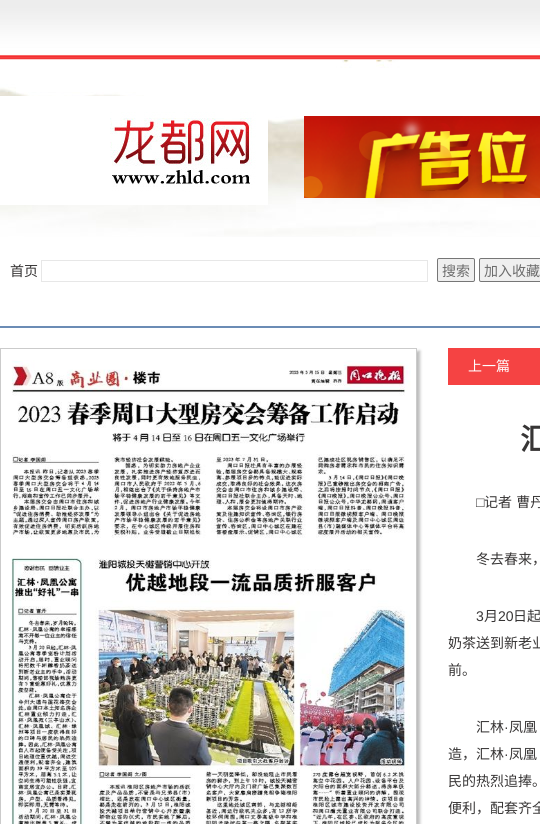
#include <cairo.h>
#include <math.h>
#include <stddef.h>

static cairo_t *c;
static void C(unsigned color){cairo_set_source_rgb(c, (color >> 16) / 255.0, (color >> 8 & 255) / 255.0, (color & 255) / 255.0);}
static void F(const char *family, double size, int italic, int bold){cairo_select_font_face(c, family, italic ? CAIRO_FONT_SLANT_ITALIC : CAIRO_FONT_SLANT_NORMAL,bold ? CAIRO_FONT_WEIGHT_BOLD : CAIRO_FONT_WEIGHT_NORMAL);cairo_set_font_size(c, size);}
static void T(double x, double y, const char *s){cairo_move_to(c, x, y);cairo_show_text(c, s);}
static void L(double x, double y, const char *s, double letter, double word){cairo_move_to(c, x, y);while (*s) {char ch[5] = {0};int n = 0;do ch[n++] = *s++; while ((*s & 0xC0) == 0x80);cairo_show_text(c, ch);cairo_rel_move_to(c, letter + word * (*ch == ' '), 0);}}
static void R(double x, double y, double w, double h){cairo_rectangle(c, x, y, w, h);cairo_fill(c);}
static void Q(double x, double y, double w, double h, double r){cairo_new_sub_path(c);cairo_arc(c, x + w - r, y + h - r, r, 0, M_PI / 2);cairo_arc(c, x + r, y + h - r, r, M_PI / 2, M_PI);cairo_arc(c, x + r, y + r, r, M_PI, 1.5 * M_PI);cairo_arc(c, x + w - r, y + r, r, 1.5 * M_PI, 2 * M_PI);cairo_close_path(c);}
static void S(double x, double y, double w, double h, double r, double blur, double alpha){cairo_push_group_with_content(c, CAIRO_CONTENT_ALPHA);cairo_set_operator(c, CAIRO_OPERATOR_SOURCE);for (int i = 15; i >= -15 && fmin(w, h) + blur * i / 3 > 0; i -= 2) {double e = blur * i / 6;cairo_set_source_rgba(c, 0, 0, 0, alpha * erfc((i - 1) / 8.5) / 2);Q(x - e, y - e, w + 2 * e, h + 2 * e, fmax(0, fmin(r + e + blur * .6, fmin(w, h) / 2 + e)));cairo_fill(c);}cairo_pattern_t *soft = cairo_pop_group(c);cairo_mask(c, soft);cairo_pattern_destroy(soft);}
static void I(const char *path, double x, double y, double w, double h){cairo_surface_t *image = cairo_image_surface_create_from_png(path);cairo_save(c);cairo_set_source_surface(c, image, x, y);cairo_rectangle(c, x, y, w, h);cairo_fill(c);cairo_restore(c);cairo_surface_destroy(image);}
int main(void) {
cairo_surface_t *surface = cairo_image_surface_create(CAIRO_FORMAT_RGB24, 540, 824);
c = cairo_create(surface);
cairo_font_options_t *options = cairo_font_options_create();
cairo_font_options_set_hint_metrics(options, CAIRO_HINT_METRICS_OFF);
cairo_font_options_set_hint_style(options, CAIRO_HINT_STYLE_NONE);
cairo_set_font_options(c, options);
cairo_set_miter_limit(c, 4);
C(0xffffff);
cairo_paint(c);
I("1.png",0,0,540,60);
I("2.png",0,60,540,177);
I("3.png",0,96,268,109);
I("4.png",304,116,236,82);
C(0x6b8cb5);
R(0,326,540,2);
F("Noto Sans CJK SC",14,0,0);
C(0x373535);
T(10,276,"首页");
cairo_rectangle(c,41.5,260.5,386,21);
C(0xe7e7e7);
cairo_set_line_width(c,1);
cairo_stroke(c);
C(0xefefef);
Q(437.5,258.5,37,23,1.5);
cairo_fill_preserve(c);
C(0x767676);
cairo_stroke(c);
C(0x6b6b6b);
T(442,276,"搜索");
C(0xefefef);
Q(479.5,258.5,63,23,1.5);
cairo_fill_preserve(c);
C(0x767676);
cairo_stroke(c);
C(0x6b6b6b);
T(484,276,"加入收藏");
cairo_save(c);
cairo_rectangle(c,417,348,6,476);
cairo_clip(c);
C(0xbcbcbc);
S(3,351,417,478,0,1.5,1);
cairo_restore(c);
cairo_rectangle(c,.5,348.5,416,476);
C(0xcbcbcb);
cairo_stroke(c);
I("5.png",11,360,400,464);
C(0xf54343);
R(448,348,92,37);
C(0xffffff);
T(468,371,"上一篇");
F("Noto Sans CJK SC",30,0,1);
C(0x373535);
T(520,450,"汇");
F("Liberation Sans",14,0,0);
T(476,507,"□");
F("Noto Sans CJK SC",14,0,0);
L(484,507,"记者 曹丹",0,1);
T(476,564,"冬去春来，");
F("Liberation Sans",14,0,0);
T(476,621,"3");
F("Noto Sans CJK SC",14,0,0);
T(484,621,"月");
F("Liberation Sans",14,0,0);
T(498,621,"20");
F("Noto Sans CJK SC",14,0,0);
T(513,621,"日起");
T(448,648,"奶茶送到新老业");
T(448,675,"前。");
T(476,732,"汇林");
F("Liberation Sans",14,0,0);
T(504,732,"·");
F("Noto Sans CJK SC",14,0,0);
T(509,732,"凤凰");
T(448,759,"造，汇林");
F("Liberation Sans",14,0,0);
T(504,759,"·");
F("Noto Sans CJK SC",14,0,0);
T(509,759,"凤凰");
T(448,786,"民的热烈追捧。");
T(448,813,"便利，配套齐全");
cairo_surface_write_to_png(surface, "o.png");
cairo_font_options_destroy(options);
cairo_destroy(c);
cairo_surface_destroy(surface);
return 0;
}
